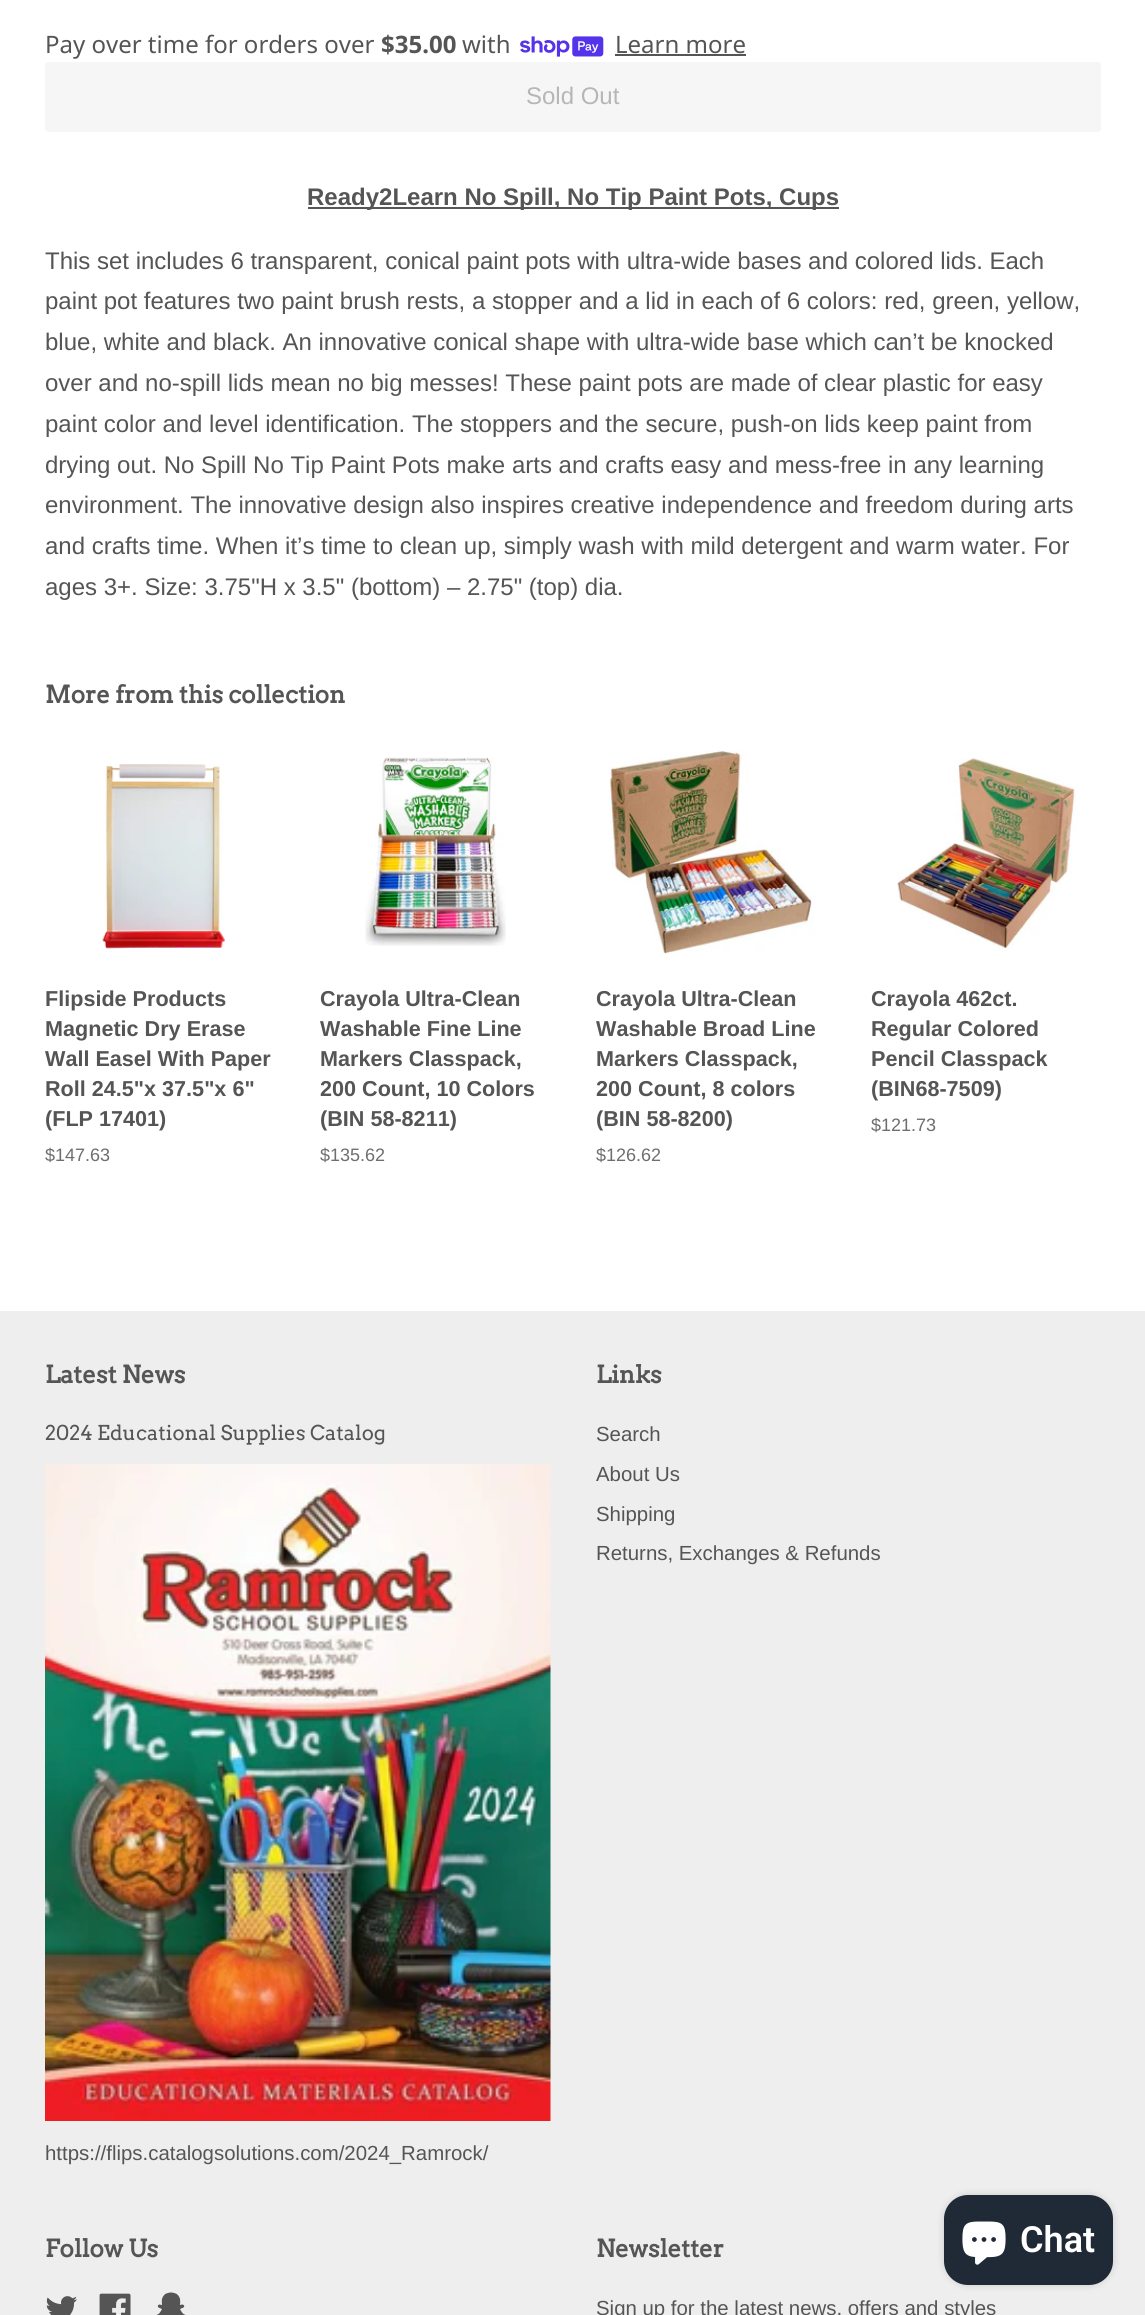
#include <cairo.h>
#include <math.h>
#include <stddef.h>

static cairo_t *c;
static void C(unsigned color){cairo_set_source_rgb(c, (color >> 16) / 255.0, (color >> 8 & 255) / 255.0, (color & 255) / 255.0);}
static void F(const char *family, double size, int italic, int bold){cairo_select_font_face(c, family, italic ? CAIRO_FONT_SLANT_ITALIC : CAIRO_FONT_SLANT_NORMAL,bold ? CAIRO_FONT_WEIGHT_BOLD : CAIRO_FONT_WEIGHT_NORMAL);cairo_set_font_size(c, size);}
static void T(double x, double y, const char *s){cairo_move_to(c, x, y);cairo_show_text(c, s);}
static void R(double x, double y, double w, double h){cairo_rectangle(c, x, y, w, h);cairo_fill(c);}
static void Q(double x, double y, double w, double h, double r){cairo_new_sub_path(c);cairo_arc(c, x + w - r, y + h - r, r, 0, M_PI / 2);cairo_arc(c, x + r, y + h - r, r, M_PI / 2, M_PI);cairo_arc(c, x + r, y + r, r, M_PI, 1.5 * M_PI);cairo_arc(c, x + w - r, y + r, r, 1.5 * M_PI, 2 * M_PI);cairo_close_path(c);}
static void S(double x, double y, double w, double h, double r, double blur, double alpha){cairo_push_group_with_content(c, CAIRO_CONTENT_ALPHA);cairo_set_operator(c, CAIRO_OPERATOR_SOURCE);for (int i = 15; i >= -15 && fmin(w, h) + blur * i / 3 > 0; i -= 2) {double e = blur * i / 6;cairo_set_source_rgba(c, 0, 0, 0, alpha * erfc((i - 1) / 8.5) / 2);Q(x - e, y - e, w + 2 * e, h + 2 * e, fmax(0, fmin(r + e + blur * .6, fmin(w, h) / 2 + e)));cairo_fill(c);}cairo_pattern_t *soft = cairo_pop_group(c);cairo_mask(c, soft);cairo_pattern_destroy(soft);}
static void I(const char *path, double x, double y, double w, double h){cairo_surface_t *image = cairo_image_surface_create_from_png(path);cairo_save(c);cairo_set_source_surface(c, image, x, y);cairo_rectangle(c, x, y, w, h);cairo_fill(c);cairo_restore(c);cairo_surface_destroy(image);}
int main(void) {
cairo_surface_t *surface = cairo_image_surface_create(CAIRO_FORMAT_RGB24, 1145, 2315);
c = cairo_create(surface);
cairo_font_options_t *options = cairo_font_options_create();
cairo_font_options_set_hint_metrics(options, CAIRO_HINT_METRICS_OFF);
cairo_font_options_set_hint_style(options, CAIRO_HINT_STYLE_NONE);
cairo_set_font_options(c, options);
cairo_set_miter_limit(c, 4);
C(0xffffff);
cairo_paint(c);
F("Noto Sans",24,0,0);
C(0x555555);
T(45,53,"Pay over time for orders over");
F("Noto Sans",24,0,1);
T(381,53,"$35.00");
F("Noto Sans",24,0,0);
T(462,53,"with");
I("1.png",520,36,84,21);
T(615,53,"Learn more");
R(615,54,131,2);
C(0xf6f6f6);
Q(45,62,1056,70,3);
cairo_fill(c);
F("Liberation Sans",24,0,0);
C(0xb6b6b6);
T(526,104,"Sold Out");
C(0x555555);
R(308,207,531,2);
F("Liberation Sans",24,0,1);
T(307,205,"Ready2Learn No Spill, No Tip Paint Pots, Cups");
F("Liberation Sans",24,0,0);
T(45,269,"This set includes 6 transparent, conical paint pots with ultra-wide bases and colored lids. Each");
T(45,309,"paint pot features two paint brush rests, a stopper and a lid in each of 6 colors: red, green, yellow,");
T(45,350,"blue, white and black. An innovative conical shape with ultra-wide base which can’t be knocked");
T(45,391,"over and no-spill lids mean no big messes! These paint pots are made of clear plastic for easy");
T(45,432,"paint color and level identification. The stoppers and the secure, push-on lids keep paint from");
T(45,473,"drying out. No Spill No Tip Paint Pots make arts and crafts easy and mess-free in any learning");
T(45,513,"environment. The innovative design also inspires creative independence and freedom during arts");
T(45,554,"and crafts time. When it’s time to clean up, simply wash with mild detergent and warm water. For");
T(45,595,"ages 3+. Size: 3.75\"H x 3.5\" (bottom) – 2.75\" (top) dia.");
F("Arvo",24,0,1);
T(45,703,"More from this collection");
I("2.png",102,764,124,185);
F("Liberation Sans",21.6,0,1);
T(45,1006,"Flipside Products");
T(45,1036,"Magnetic Dry Erase");
T(45,1066,"Wall Easel With Paper");
T(45,1096,"Roll 24.5\"x 37.5\"x 6\"");
T(45,1126,"(FLP 17401)");
F("Liberation Sans",18,0,0);
C(0x6e6e6e);
T(45,1161,"$147.63");
I("3.png",365,757,141,189);
F("Liberation Sans",21.6,0,1);
C(0x555555);
T(320,1006,"Crayola Ultra-Clean");
T(320,1036,"Washable Fine Line");
T(320,1066,"Markers Classpack,");
T(320,1096,"200 Count, 10 Colors");
T(320,1126,"(BIN 58-8211)");
F("Liberation Sans",18,0,0);
C(0x6e6e6e);
T(320,1161,"$135.62");
I("4.png",609,750,205,204);
F("Liberation Sans",21.6,0,1);
C(0x555555);
T(596,1006,"Crayola Ultra-Clean");
T(596,1036,"Washable Broad Line");
T(596,1066,"Markers Classpack,");
T(596,1096,"200 Count, 8 colors");
T(596,1126,"(BIN 58-8200)");
F("Liberation Sans",18,0,0);
C(0x6e6e6e);
T(596,1161,"$126.62");
I("5.png",897,758,181,193);
F("Liberation Sans",21.6,0,1);
C(0x555555);
T(871,1006,"Crayola 462ct.");
T(871,1036,"Regular Colored");
T(871,1066,"Pencil Classpack");
T(871,1096,"(BIN68-7509)");
F("Liberation Sans",18,0,0);
C(0x6e6e6e);
T(871,1131,"$121.73");
C(0xeeeeee);
R(0,1311,1145,1004);
F("Arvo",24,0,1);
C(0x555555);
T(45,1383,"Latest News");
F("Arvo",20.4,0,0);
T(45,1440,"2024 Educational Supplies Catalog");
I("6.png",45,1464,506,657);
F("Liberation Sans",20.4,0,0);
T(45,2160,"https://flips.catalogsolutions.com/2024_Ramrock/");
F("Arvo",24,0,1);
T(596,1383,"Links");
F("Liberation Sans",20.4,0,0);
T(596,1441,"Search");
T(596,1481,"About Us");
T(596,1521,"Shipping");
T(596,1560,"Returns, Exchanges & Refunds");
F("Arvo",24,0,1);
T(45,2257,"Follow Us");
I("7.png",46,2296,31,19);
I("8.png",99,2293,32,22);
I("9.png",156,2292,30,23);
T(596,2257,"Newsletter");
F("Liberation Sans",20.4,0,0);
T(596,2315,"Sign up for the latest news, offers and styles");
C(0x000000);
S(944,2195,169,90,24,4,.15);
C(0x202a36);
Q(944,2195,169,90,24);
cairo_fill(c);
I("10.png",962,2221,44,44);
F("Roboto SemiBold",36,0,0);
C(0xffffff);
T(1020,2252,"Chat");
cairo_surface_write_to_png(surface, "o.png");
cairo_font_options_destroy(options);
cairo_destroy(c);
cairo_surface_destroy(surface);
return 0;
}
